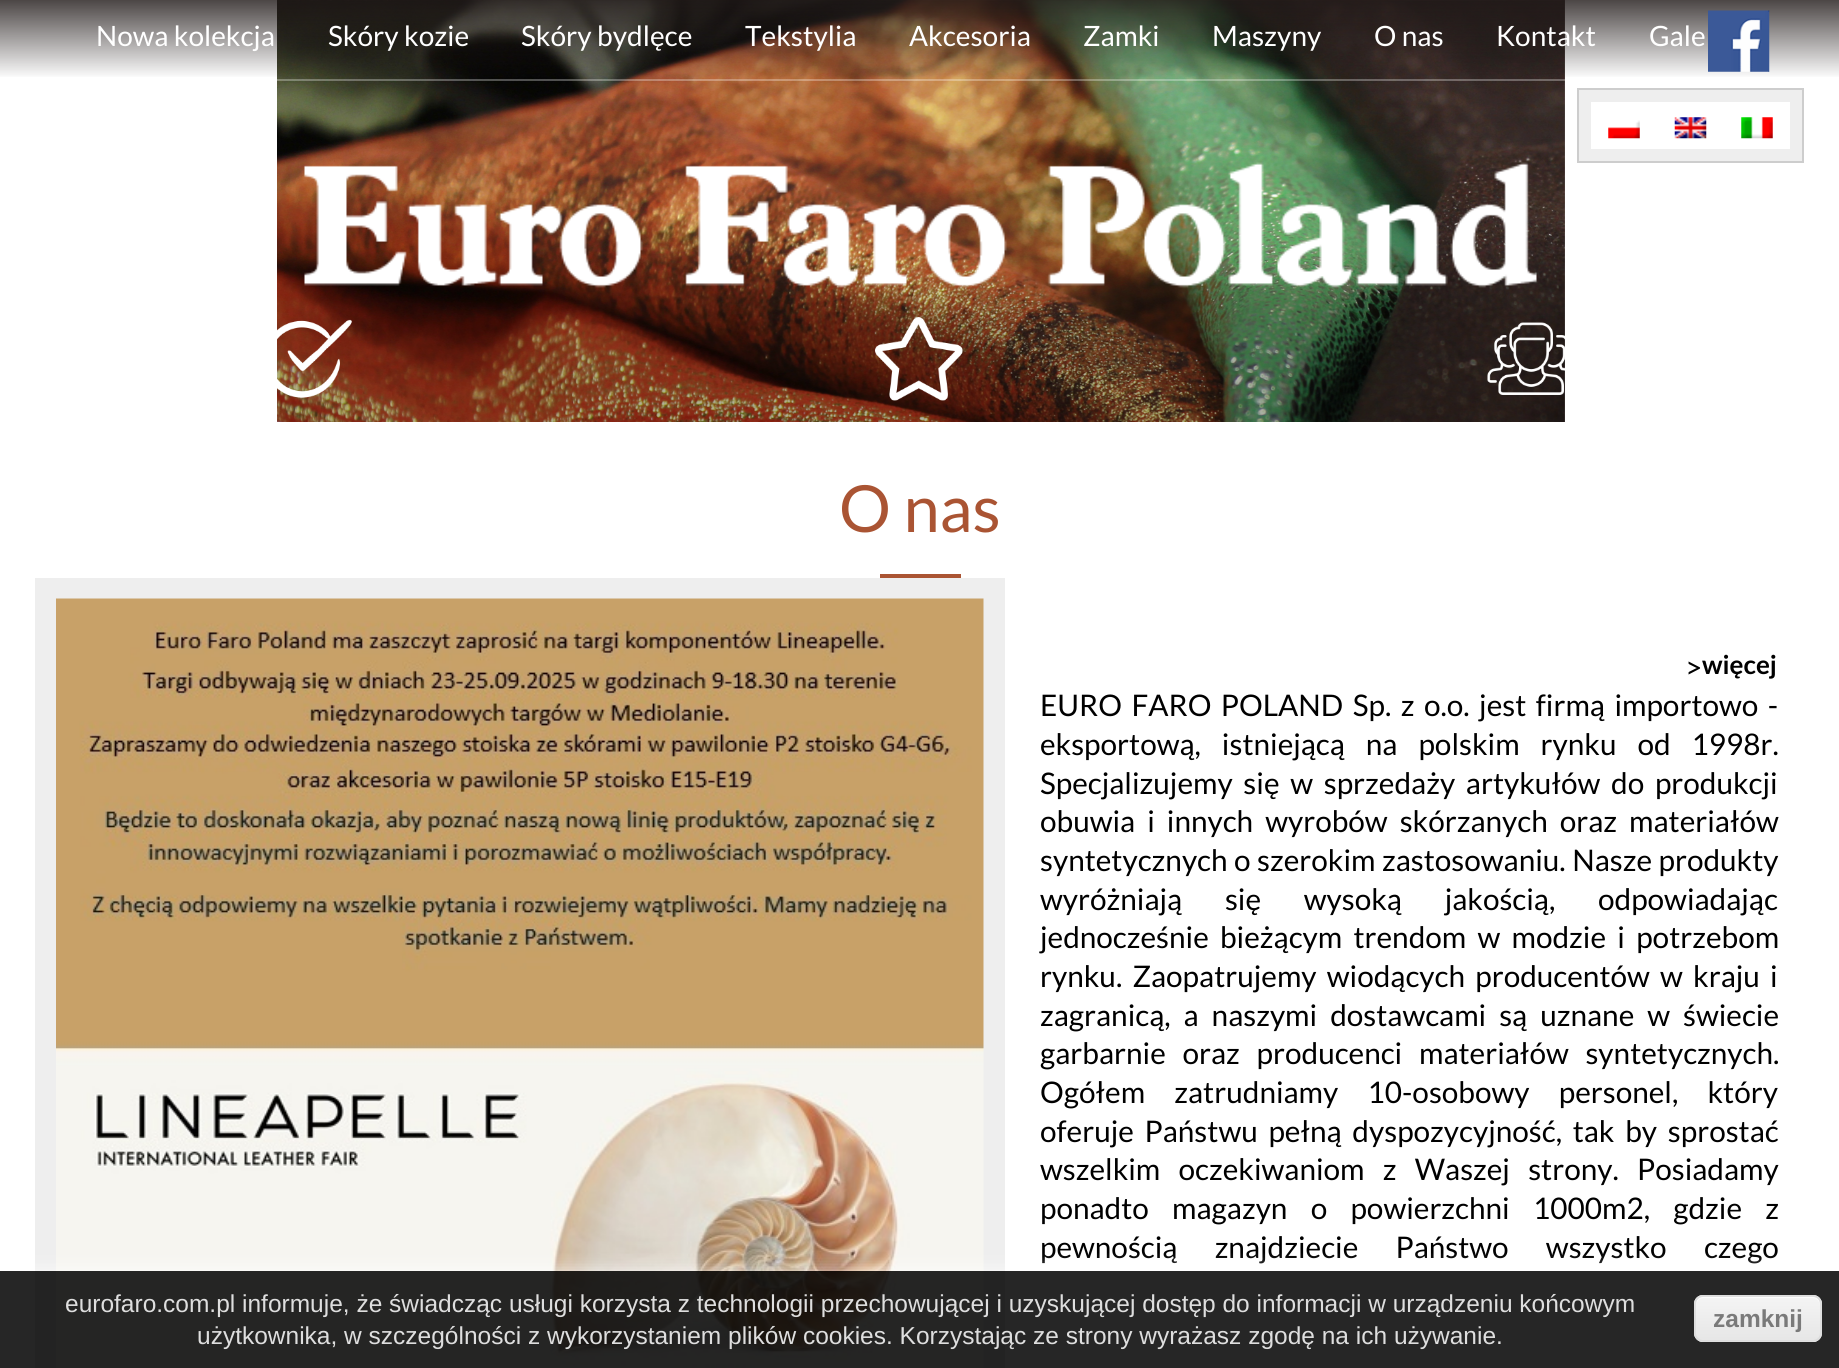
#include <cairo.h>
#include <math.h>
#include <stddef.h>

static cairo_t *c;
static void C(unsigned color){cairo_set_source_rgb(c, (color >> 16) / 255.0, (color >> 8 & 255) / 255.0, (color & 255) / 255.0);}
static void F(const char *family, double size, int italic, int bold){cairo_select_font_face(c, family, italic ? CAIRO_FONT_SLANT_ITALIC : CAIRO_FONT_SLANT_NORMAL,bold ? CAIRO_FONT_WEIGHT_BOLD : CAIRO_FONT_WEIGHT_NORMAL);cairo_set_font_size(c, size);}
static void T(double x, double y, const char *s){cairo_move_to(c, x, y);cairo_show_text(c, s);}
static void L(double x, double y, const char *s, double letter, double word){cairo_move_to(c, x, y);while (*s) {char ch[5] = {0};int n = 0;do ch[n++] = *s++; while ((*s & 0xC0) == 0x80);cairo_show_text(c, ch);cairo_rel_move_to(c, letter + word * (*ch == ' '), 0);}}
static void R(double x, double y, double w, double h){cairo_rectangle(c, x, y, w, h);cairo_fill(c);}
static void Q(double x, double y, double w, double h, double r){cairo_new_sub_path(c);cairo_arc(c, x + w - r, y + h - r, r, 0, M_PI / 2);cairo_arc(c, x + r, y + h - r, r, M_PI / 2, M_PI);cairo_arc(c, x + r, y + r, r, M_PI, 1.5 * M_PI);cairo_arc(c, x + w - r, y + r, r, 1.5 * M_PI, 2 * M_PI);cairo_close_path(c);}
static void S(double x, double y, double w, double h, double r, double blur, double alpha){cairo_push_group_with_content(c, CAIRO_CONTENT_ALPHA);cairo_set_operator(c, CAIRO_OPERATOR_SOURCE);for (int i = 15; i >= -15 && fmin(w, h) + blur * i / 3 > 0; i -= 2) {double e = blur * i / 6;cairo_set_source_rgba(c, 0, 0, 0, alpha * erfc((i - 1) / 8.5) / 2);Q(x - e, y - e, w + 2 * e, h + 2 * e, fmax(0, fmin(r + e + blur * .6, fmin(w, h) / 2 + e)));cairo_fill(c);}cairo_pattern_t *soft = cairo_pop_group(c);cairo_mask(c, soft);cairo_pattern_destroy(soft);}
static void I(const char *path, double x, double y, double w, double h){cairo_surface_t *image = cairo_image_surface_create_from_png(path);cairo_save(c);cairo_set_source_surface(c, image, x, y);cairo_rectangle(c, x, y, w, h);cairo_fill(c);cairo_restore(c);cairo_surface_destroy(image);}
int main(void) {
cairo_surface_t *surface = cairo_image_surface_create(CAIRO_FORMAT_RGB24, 1839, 1368);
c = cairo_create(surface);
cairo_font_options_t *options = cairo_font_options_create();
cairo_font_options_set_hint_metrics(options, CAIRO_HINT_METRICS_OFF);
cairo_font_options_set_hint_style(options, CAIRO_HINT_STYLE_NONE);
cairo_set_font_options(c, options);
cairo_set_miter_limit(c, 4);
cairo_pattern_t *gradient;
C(0xffffff);
cairo_paint(c);
I("1.png",277,0,1288,422);
gradient = cairo_pattern_create_linear(920,0,920,79);
cairo_pattern_add_color_stop_rgba(gradient,0,0.122,0.094,0.09,.8);
cairo_pattern_add_color_stop_rgba(gradient,1,0.122,0.094,0.09,0);
cairo_set_source(c,gradient);
cairo_pattern_destroy(gradient);
R(0,0,1839,77);
cairo_set_source_rgba(c,1,1,1,0.3);
R(277,79,1288,2);
F("Lato",28,0,0);
C(0xffffff);
T(96,46,"Nowa kolekcja");
T(328,46,"Skóry kozie");
T(521,46,"Skóry bydlęce");
T(745,46,"Tekstylia");
T(909,46,"Akcesoria");
T(1083,46,"Zamki");
T(1212,46,"Maszyny");
T(1374,46,"O nas");
T(1496,46,"Kontakt");
T(1649,46,"Gale");
I("2.png",1708,10,62,62);
C(0xeeeeee);
cairo_rectangle(c,1578,89,225,73);
cairo_fill_preserve(c);
C(0xcdcdcd);
cairo_stroke(c);
C(0xffffff);
R(1591,102,199,47);
I("3.png",1608,120,32,19);
I("4.png",1674,117,33,22);
I("5.png",1741,117,32,22);
I("6.png",304,162,1233,126);
I("7.png",277,319,75,79);
I("8.png",875,317,88,84);
I("9.png",1487,322,78,73);
F("Lato",65,0,0);
C(0xaa5433);
T(839,532,"O nas");
R(880,574,81,4);
C(0xeeeeee);
R(35,578,970,790);
I("10.png",56,598,928,770);
F("Lato",29.75,0,0);
C(0x000000);
T(1685,678,">");
F("Lato",26,0,1);
T(1702,674,"więcej");
F("Lato",29.75,0,0);
L(1040,716,"EURO FARO POLAND Sp. z o.o. jest firmą importowo -",0,3.75);
L(1040,755,"eksportową, istniejącą na polskim rynku od 1998r.",0,15.25);
L(1040,794,"Specjalizujemy się w sprzedaży artykułów do produkcji",0,5);
L(1040,832,"obuwia i innych wyrobów skórzanych oraz materiałów",0,6.25);
L(1040,871,"syntetycznych o szerokim zastosowaniu. Nasze produkty",0,.75);
L(1040,910,"wyróżniają się wysoką jakością, odpowiadając",0,37);
L(1040,948,"jednocześnie bieżącym trendom w modzie i potrzebom",0,5.5);
L(1040,987,"rynku. Zaopatrujemy wiodących producentów w kraju i",0,4.5);
L(1040,1026,"zagranicą, a naszymi dostawcami są uznane w świecie",0,7.25);
L(1040,1064,"garbarnie oraz producenci materiałów syntetycznych.",0,11);
L(1040,1103,"Ogółem zatrudniamy 10-osobowy personel, który",0,23.5);
L(1040,1142,"oferuje Państwu pełną dyspozycyjność, tak by sprostać",0,5);
L(1040,1180,"wszelkim oczekiwaniom z Waszej strony. Posiadamy",0,12.5);
L(1040,1219,"ponadto magazyn o powierzchni 1000m2, gdzie z",0,17.5);
L(1040,1258,"pewnością znajdziecie Państwo wszystko czego",0,31.5);
cairo_save(c);
cairo_rectangle(c,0,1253,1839,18);
cairo_clip(c);
C(0xffffff);
S(0,1271,1839,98,0,9,.85);
cairo_restore(c);
cairo_set_source_rgba(c,0,0,0,0.85);
R(0,1271,1839,97);
F("Liberation Sans",24.5,0,0);
C(0xdedede);
T(65,1312,"eurofaro.com.pl informuje, że świadcząc usługi korzysta z technologii przechowującej i uzyskującej dostęp do informacji w urządzeniu końcowym");
T(197,1344,"użytkownika, w szczególności z wykorzystaniem plików cookies. Korzystając ze strony wyrażasz zgodę na ich używanie.");
cairo_set_source_rgba(c,0.976,0.976,0.976,0.85);
Q(1694,1295,128,47,9);
cairo_fill(c);
cairo_save(c);
Q(1694,1295,128,47,9);
cairo_clip(c);
gradient = cairo_pattern_create_linear(1696,1253,1696,1297);
cairo_pattern_add_color_stop_rgba(gradient,.05,0.976,0.976,0.976,.85);
cairo_pattern_add_color_stop_rgba(gradient,1,0.914,0.914,0.914,.85);
cairo_set_source(c,gradient);
cairo_pattern_destroy(gradient);
R(1694,1295,128,2);
gradient = cairo_pattern_create_linear(1696,1297,1696,1341);
cairo_pattern_add_color_stop_rgba(gradient,.05,0.976,0.976,0.976,.85);
cairo_pattern_add_color_stop_rgba(gradient,1,0.914,0.914,0.914,.85);
cairo_set_source(c,gradient);
cairo_pattern_destroy(gradient);
R(1694,1297,128,44);
gradient = cairo_pattern_create_linear(1696,1341,1696,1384);
cairo_pattern_add_color_stop_rgba(gradient,.05,0.98,0.98,0.98,1);
cairo_pattern_add_color_stop_rgba(gradient,1,0.925,0.925,0.925,1);
cairo_set_source(c,gradient);
cairo_pattern_destroy(gradient);
R(1694,1341,128,1);
cairo_restore(c);
cairo_set_source_rgba(c,1,1,1,0.85);
cairo_new_path(c);
cairo_move_to(c,1703,1298);
cairo_line_to(c,1813,1298);
cairo_curve_to(c,1817,1298,1820,1302,1820,1306);
cairo_curve_to(c,1820,1292,1805,1297,1795,1297);
cairo_line_to(c,1721,1297);
cairo_curve_to(c,1711,1297,1696,1292,1696,1306);
cairo_curve_to(c,1696,1302,1699,1298,1703,1298);
cairo_close_path(c);
cairo_fill(c);
Q(1695,1296,126,45,8);
cairo_set_source_rgba(c,0.863,0.863,0.863,0.85);
cairo_stroke(c);
F("Liberation Sans",24.5,0,1);
C(0x7a7a7a);
T(1713,1327,"zamknij");
cairo_surface_write_to_png(surface, "o.png");
cairo_font_options_destroy(options);
cairo_destroy(c);
cairo_surface_destroy(surface);
return 0;
}
